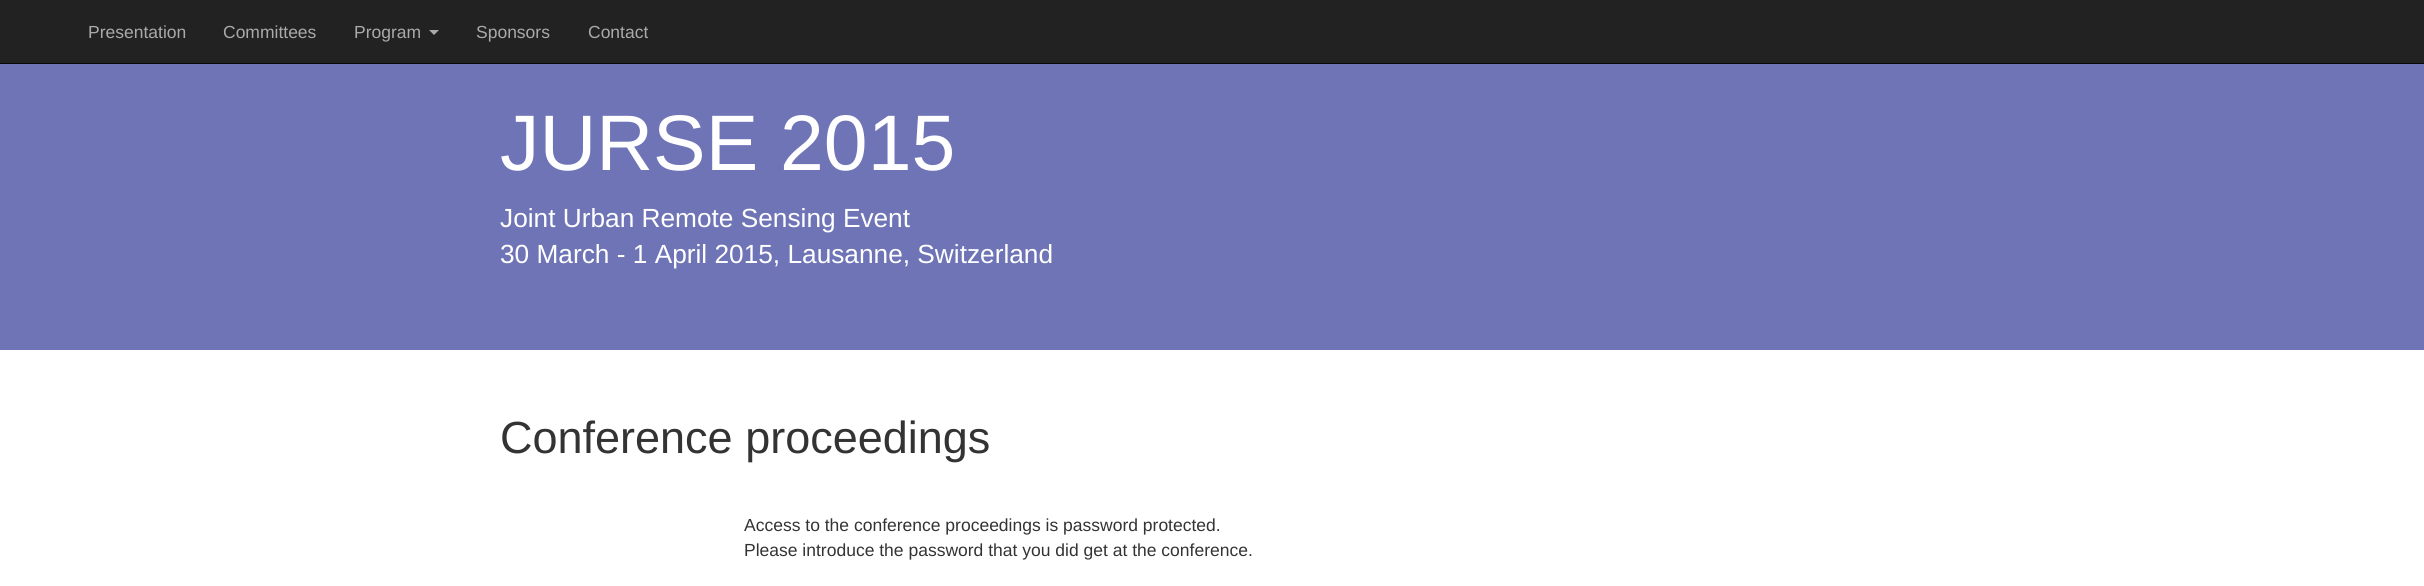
#include <cairo.h>
#include <math.h>
#include <stddef.h>

static cairo_t *c;
static void C(unsigned color){cairo_set_source_rgb(c, (color >> 16) / 255.0, (color >> 8 & 255) / 255.0, (color & 255) / 255.0);}
static void F(const char *family, double size, int italic, int bold){cairo_select_font_face(c, family, italic ? CAIRO_FONT_SLANT_ITALIC : CAIRO_FONT_SLANT_NORMAL,bold ? CAIRO_FONT_WEIGHT_BOLD : CAIRO_FONT_WEIGHT_NORMAL);cairo_set_font_size(c, size);}
static void T(double x, double y, const char *s){cairo_move_to(c, x, y);cairo_show_text(c, s);}
static void R(double x, double y, double w, double h){cairo_rectangle(c, x, y, w, h);cairo_fill(c);}
int main(void) {
cairo_surface_t *surface = cairo_image_surface_create(CAIRO_FORMAT_RGB24, 2424, 586);
c = cairo_create(surface);
cairo_font_options_t *options = cairo_font_options_create();
cairo_font_options_set_hint_metrics(options, CAIRO_HINT_METRICS_OFF);
cairo_font_options_set_hint_style(options, CAIRO_HINT_STYLE_NONE);
cairo_set_font_options(c, options);
cairo_set_miter_limit(c, 4);
C(0xffffff);
cairo_paint(c);
C(0x222222);
R(0,0,2424,63);
C(0x080808);
R(0,63,2424,1);
F("Liberation Sans",17.5,0,0);
C(0xaaaaaa);
T(88,38,"Presentation");
T(223,38,"Committees");
T(354,38,"Program");
cairo_new_path(c);
cairo_move_to(c,429,30);
cairo_line_to(c,439,30);
cairo_line_to(c,434,35);
cairo_close_path(c);
cairo_fill(c);
T(476,38,"Sponsors");
T(588,38,"Contact");
C(0x6e74b6);
R(0,64,2424,286);
F("Liberation Sans",78.75,0,0);
C(0xffffff);
T(500,170,"JURSE 2015");
F("Liberation Sans",26.25,0,0);
T(500,227,"Joint Urban Remote Sensing Event");
T(500,263,"30 March - 1 April 2015, Lausanne, Switzerland");
F("Liberation Sans",45,0,0);
C(0x333333);
T(500,453,"Conference proceedings");
F("Liberation Sans",17.5,0,0);
T(744,531,"Access to the conference proceedings is password protected.");
T(744,556,"Please introduce the password that you did get at the conference.");
cairo_surface_write_to_png(surface, "o.png");
cairo_font_options_destroy(options);
cairo_destroy(c);
cairo_surface_destroy(surface);
return 0;
}
